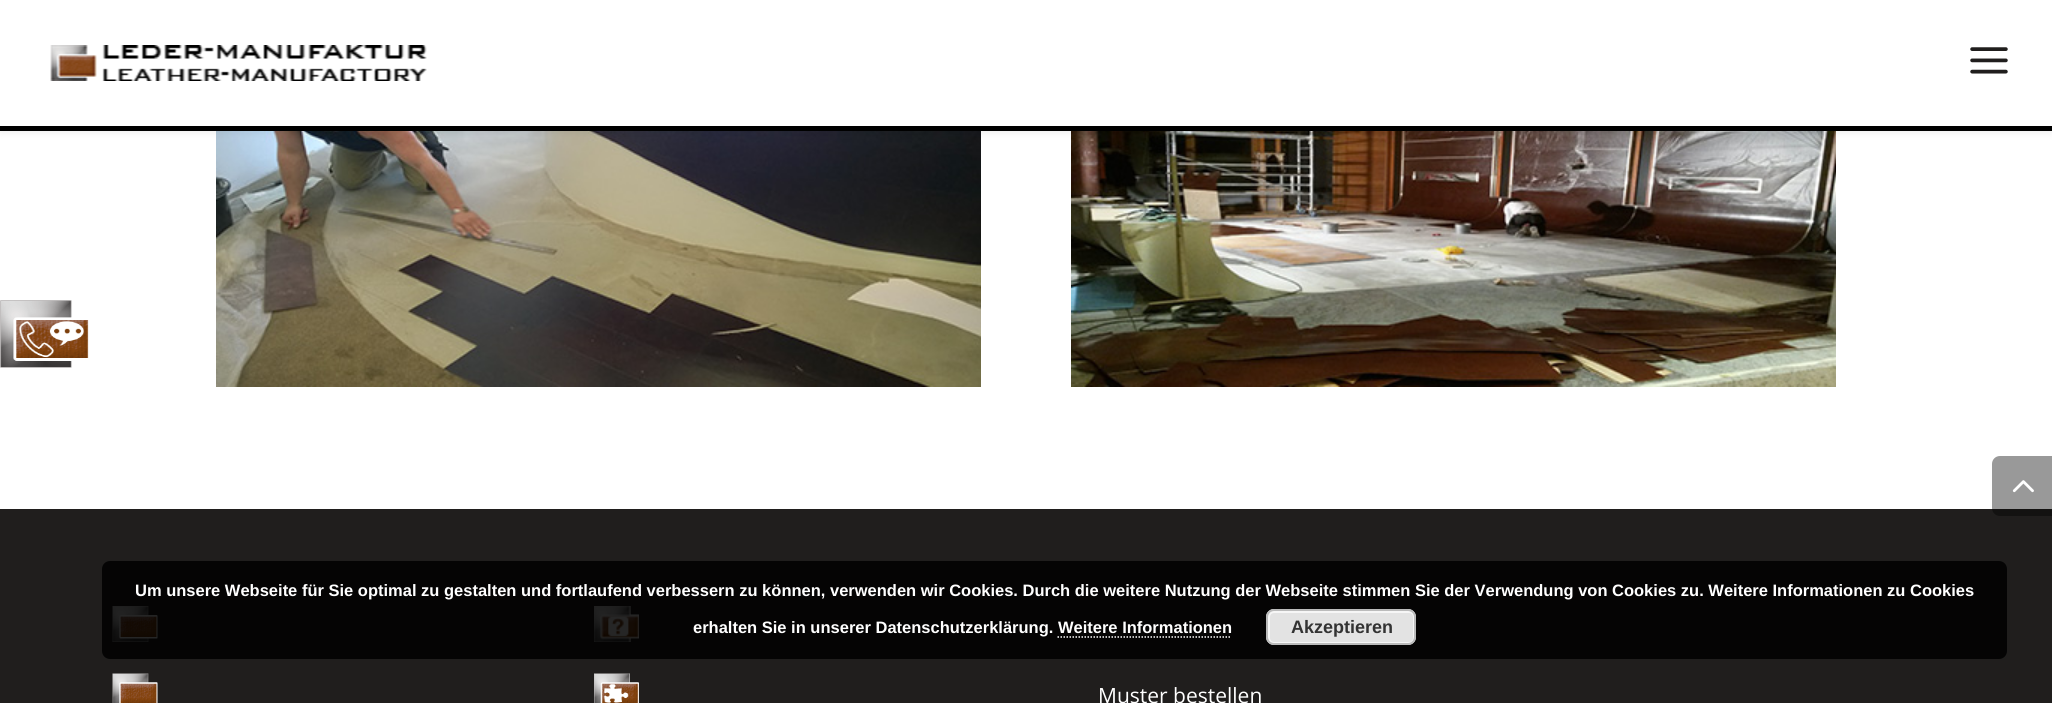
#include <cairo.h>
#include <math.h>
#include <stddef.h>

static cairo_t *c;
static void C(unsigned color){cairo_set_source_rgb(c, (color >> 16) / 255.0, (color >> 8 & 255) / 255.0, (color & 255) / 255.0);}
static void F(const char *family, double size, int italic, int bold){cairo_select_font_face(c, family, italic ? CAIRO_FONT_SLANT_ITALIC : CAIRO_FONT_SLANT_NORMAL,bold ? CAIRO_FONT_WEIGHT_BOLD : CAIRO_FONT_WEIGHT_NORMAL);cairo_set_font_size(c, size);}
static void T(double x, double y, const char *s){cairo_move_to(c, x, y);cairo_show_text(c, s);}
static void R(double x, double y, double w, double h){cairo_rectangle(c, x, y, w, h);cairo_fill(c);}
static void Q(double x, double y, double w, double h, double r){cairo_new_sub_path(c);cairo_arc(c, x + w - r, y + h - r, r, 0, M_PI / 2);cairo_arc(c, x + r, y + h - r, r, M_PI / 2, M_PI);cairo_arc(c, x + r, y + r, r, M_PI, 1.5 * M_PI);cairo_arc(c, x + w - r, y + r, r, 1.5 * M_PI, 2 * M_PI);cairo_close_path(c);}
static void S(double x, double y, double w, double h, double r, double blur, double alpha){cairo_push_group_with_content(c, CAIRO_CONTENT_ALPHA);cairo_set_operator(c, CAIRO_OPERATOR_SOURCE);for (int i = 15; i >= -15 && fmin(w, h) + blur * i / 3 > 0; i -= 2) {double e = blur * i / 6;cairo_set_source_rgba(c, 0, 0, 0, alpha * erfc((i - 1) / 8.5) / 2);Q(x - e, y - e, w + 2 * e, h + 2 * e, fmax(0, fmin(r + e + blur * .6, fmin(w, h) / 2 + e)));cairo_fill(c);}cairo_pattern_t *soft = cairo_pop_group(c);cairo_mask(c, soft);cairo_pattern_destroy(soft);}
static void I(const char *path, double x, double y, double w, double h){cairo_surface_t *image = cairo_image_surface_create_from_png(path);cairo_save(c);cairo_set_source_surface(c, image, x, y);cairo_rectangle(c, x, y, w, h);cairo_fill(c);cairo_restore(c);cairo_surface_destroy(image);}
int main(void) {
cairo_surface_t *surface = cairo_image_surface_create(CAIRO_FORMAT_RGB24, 2052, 703);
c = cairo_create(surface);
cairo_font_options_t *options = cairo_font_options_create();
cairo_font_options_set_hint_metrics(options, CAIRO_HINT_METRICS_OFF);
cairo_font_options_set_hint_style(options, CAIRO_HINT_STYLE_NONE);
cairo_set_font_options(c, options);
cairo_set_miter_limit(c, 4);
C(0xffffff);
cairo_paint(c);
I("1.png",0,300,89,68);
C(0x201e1d);
R(0,509,2052,194);
I("7.png",112,606,46,36);
I("9.png",594,606,45,36);
cairo_set_source_rgba(c,0,0,0,0.85);
Q(102,561,1905,98,8);
cairo_fill(c);
F("Liberation Sans",16.5,0,1);
C(0xffffff);
T(135,596,"Um unsere Webseite für Sie optimal zu gestalten und fortlaufend verbessern zu können, verwenden wir Cookies. Durch die weitere Nutzung der Webseite stimmen Sie der Verwendung von Cookies zu. Weitere Informationen zu Cookies");
T(693,633,"erhalten Sie in unserer Datenschutzerklärung. Weitere Informationen");
C(0xe3e3e3);
Q(1266,609,150,36,8);
cairo_fill(c);
Q(1269,612,145,31,5);
C(0xf6f6f6);
cairo_stroke(c);
Q(1267,610,148,34,7);
C(0xbbbbbb);
cairo_stroke(c);
F("Liberation Sans",18,0,1);
C(0x333333);
T(1291,633,"Akzeptieren");
cairo_new_path(c);
cairo_move_to(c,1057.5,637);
cairo_line_to(c,1231.5,637);
C(0xffffff);
cairo_set_line_width(c,1.5);
cairo_set_dash(c,(double[]){1.5,1.5},2,0);
cairo_stroke(c);
I("5.png",216,131,765,256);
I("6.png",1071,131,765,256);
C(0x000000);
S(0,0,2052,131,0,5,.1);
C(0xffffff);
R(0,0,2052,126);
C(0x000000);
R(0,126,2052,5);
I("2.png",50,45,377,36);
I("3.png",1970,47,38,27);
cairo_set_source_rgba(c,0,0,0,0.4);
cairo_new_path(c);
cairo_move_to(c,2000,456);
cairo_line_to(c,2052,456);
cairo_line_to(c,2052,516);
cairo_line_to(c,2000,516);
cairo_curve_to(c,1995.5,516,1992,512.5,1992,508);
cairo_line_to(c,1992,464);
cairo_curve_to(c,1992,459.5,1995.5,456,2000,456);
cairo_close_path(c);
cairo_fill(c);
I("4.png",2012,480,22,13);
I("8.png",112,673,46,30);
I("10.png",594,673,45,30);
F("Open Sans",21,0,0);
C(0xffffff);
T(1098,703,"Muster bestellen");
cairo_surface_write_to_png(surface, "o.png");
cairo_font_options_destroy(options);
cairo_destroy(c);
cairo_surface_destroy(surface);
return 0;
}
